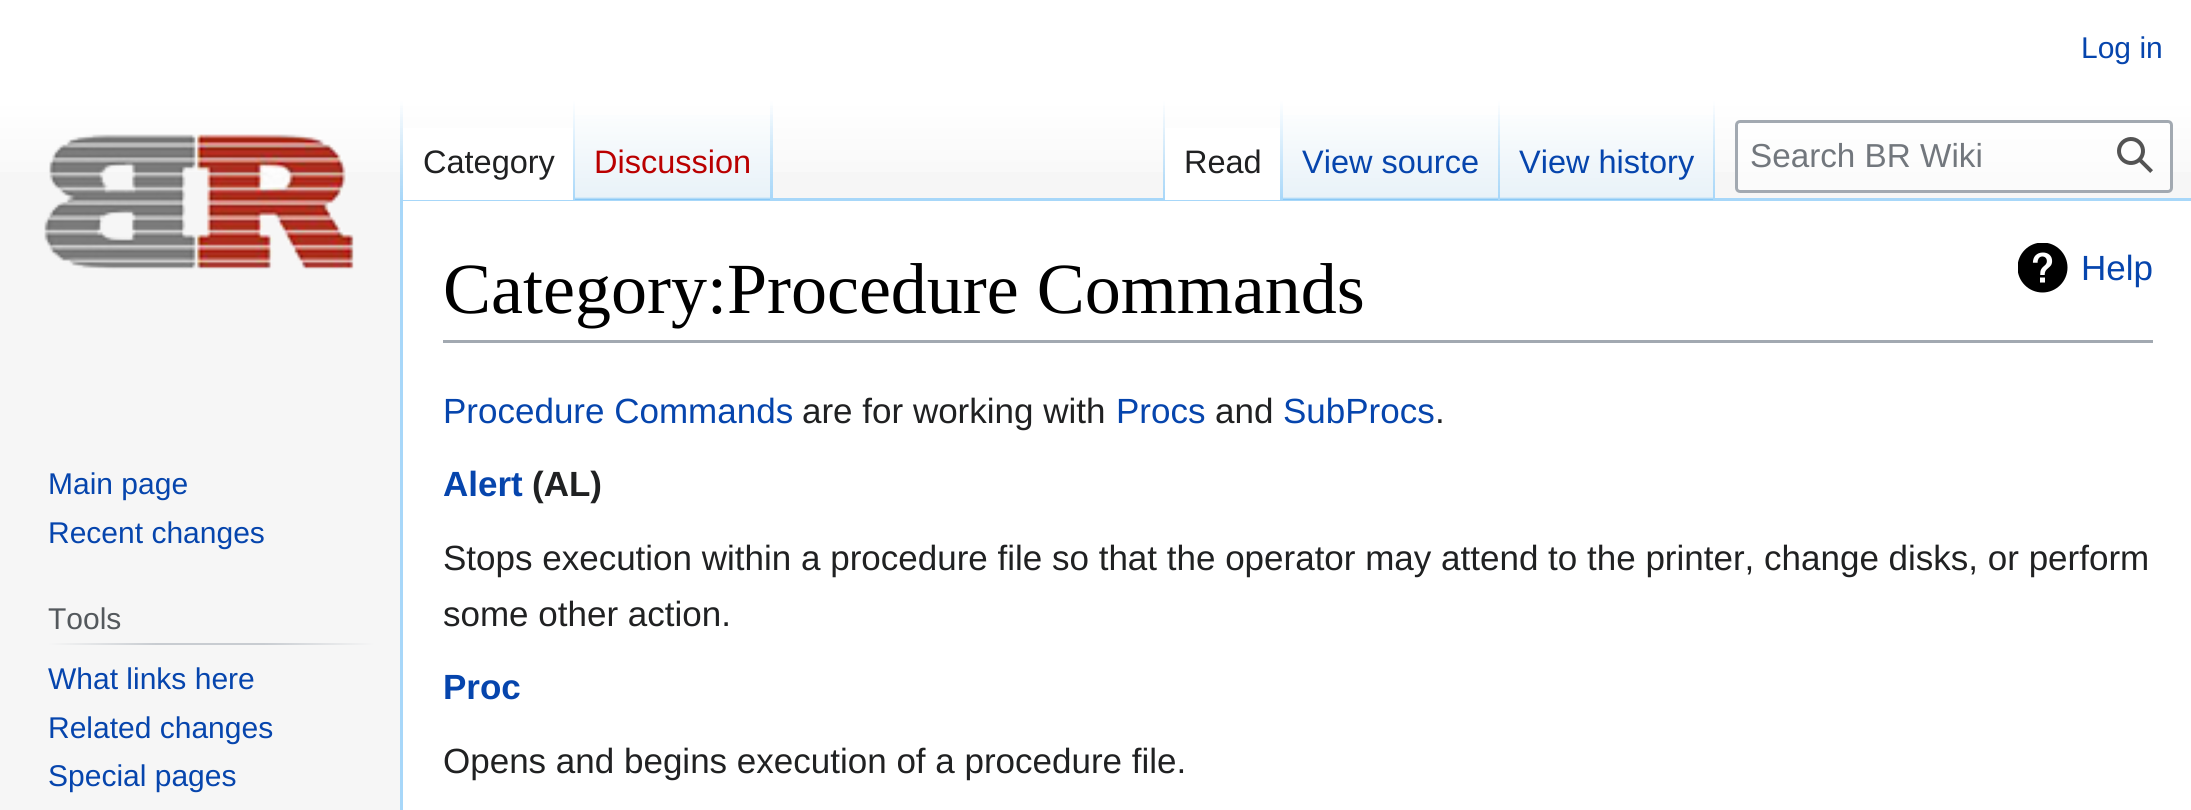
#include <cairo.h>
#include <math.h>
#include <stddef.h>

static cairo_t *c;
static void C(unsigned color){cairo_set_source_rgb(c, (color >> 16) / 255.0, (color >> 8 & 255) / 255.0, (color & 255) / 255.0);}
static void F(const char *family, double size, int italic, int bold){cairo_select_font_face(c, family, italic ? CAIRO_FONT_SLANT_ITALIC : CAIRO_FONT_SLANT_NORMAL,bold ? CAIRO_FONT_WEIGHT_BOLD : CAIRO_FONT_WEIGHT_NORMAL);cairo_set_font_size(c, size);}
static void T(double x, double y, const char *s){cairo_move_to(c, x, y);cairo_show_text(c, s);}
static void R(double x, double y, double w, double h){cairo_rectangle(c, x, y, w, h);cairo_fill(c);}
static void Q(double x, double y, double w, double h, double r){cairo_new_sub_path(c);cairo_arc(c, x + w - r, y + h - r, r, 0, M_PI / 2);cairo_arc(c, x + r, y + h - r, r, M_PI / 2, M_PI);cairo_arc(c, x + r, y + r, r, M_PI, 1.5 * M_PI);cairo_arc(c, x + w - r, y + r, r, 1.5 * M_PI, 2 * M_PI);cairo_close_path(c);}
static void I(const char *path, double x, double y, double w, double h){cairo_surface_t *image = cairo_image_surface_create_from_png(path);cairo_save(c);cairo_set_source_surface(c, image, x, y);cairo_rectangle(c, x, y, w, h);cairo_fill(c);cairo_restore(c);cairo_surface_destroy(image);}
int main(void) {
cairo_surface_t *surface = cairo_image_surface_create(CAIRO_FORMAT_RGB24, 2191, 810);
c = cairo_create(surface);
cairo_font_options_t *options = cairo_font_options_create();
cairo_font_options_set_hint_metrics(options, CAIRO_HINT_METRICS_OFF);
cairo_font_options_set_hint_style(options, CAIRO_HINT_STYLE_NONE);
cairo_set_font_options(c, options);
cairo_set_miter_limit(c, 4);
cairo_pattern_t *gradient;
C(0xf6f6f6);
cairo_paint(c);
gradient = cairo_pattern_create_linear(1096,0,1096,200);
cairo_pattern_add_color_stop_rgba(gradient,.5,1,1,1,1);
cairo_pattern_add_color_stop_rgba(gradient,1,0.965,0.965,0.965,1);
cairo_set_source(c,gradient);
cairo_pattern_destroy(gradient);
R(0,0,2191,172);
F("Liberation Sans",30,0,0);
C(0x0645ad);
T(2081,58,"Log in");
C(0xa7d7f9);
R(400,198,1791,3);
R(400,198,3,612);
gradient = cairo_pattern_create_linear(401,100,401,200);
cairo_pattern_add_color_stop_rgba(gradient,0,0.655,0.843,0.976,0);
cairo_pattern_add_color_stop_rgba(gradient,1,0.655,0.843,0.976,1);
cairo_set_source(c,gradient);
cairo_pattern_destroy(gradient);
R(400,100,3,100);
C(0xffffff);
R(403,128,170,72);
gradient = cairo_pattern_create_linear(574,100,574,200);
cairo_pattern_add_color_stop_rgba(gradient,0,1,1,1,1);
cairo_pattern_add_color_stop_rgba(gradient,1,0.655,0.843,0.976,1);
cairo_set_source(c,gradient);
cairo_pattern_destroy(gradient);
R(573,100,2,100);
F("Liberation Sans",32.5,0,0);
C(0x202122);
T(423,173,"Category");
gradient = cairo_pattern_create_linear(674,200,674,100);
cairo_pattern_add_color_stop_rgba(gradient,0,0.467,0.757,0.965,1);
cairo_pattern_add_color_stop_rgba(gradient,.03,0.91,0.949,0.973,1);
cairo_pattern_add_color_stop_rgba(gradient,1,1,1,1,1);
cairo_set_source(c,gradient);
cairo_pattern_destroy(gradient);
R(575,115,198,85);
gradient = cairo_pattern_create_linear(771,100,771,200);
cairo_pattern_add_color_stop_rgba(gradient,0,0.655,0.843,0.976,0);
cairo_pattern_add_color_stop_rgba(gradient,1,0.655,0.843,0.976,1);
cairo_set_source(c,gradient);
cairo_pattern_destroy(gradient);
R(770,100,3,100);
C(0xba0000);
T(594,173,"Discussion");
gradient = cairo_pattern_create_linear(1164,100,1164,200);
cairo_pattern_add_color_stop_rgba(gradient,0,0.655,0.843,0.976,0);
cairo_pattern_add_color_stop_rgba(gradient,1,0.655,0.843,0.976,1);
cairo_set_source(c,gradient);
cairo_pattern_destroy(gradient);
R(1163,100,2,100);
C(0xffffff);
R(1165,128,115,72);
gradient = cairo_pattern_create_linear(1281,100,1281,200);
cairo_pattern_add_color_stop_rgba(gradient,0,1,1,1,1);
cairo_pattern_add_color_stop_rgba(gradient,1,0.655,0.843,0.976,1);
cairo_set_source(c,gradient);
cairo_pattern_destroy(gradient);
R(1280,100,3,100);
C(0x202122);
T(1184,173,"Read");
gradient = cairo_pattern_create_linear(1391,200,1391,100);
cairo_pattern_add_color_stop_rgba(gradient,0,0.467,0.757,0.965,1);
cairo_pattern_add_color_stop_rgba(gradient,.03,0.91,0.949,0.973,1);
cairo_pattern_add_color_stop_rgba(gradient,1,1,1,1,1);
cairo_set_source(c,gradient);
cairo_pattern_destroy(gradient);
R(1283,115,217,85);
gradient = cairo_pattern_create_linear(1499,100,1499,200);
cairo_pattern_add_color_stop_rgba(gradient,0,0.655,0.843,0.976,0);
cairo_pattern_add_color_stop_rgba(gradient,1,0.655,0.843,0.976,1);
cairo_set_source(c,gradient);
cairo_pattern_destroy(gradient);
R(1498,100,2,100);
C(0x0645ad);
T(1302,173,"View source");
gradient = cairo_pattern_create_linear(1608,200,1608,100);
cairo_pattern_add_color_stop_rgba(gradient,0,0.467,0.757,0.965,1);
cairo_pattern_add_color_stop_rgba(gradient,.03,0.91,0.949,0.973,1);
cairo_pattern_add_color_stop_rgba(gradient,1,1,1,1,1);
cairo_set_source(c,gradient);
cairo_pattern_destroy(gradient);
R(1500,115,215,85);
gradient = cairo_pattern_create_linear(1714,100,1714,200);
cairo_pattern_add_color_stop_rgba(gradient,0,0.655,0.843,0.976,0);
cairo_pattern_add_color_stop_rgba(gradient,1,0.655,0.843,0.976,1);
cairo_set_source(c,gradient);
cairo_pattern_destroy(gradient);
R(1713,100,2,100);
C(0x0645ad);
T(1519,173,"View history");
cairo_set_source_rgba(c,1,1,1,0.5);
Q(1736.5,121.5,435,70,3.5);
cairo_fill_preserve(c);
C(0xa2a9b1);
cairo_set_line_width(c,3);
cairo_stroke(c);
F("Liberation Sans",33.25,0,0);
C(0x72777d);
T(1750,167,"Search BR Wiki");
I("1.png",2117,137,36,36);
I("2.png",44,134,310,136);
F("Liberation Sans",30,0,0);
C(0x0645ad);
T(48,494,"Main page");
T(48,543,"Recent changes");
gradient = cairo_pattern_create_linear(48,644,375,644);
cairo_pattern_add_color_stop_rgba(gradient,0,0.965,0.965,0.965,1);
cairo_pattern_add_color_stop_rgba(gradient,.33,0.784,0.8,0.82,1);
cairo_pattern_add_color_stop_rgba(gradient,.66,0.784,0.8,0.82,1);
cairo_pattern_add_color_stop_rgba(gradient,1,0.965,0.965,0.965,1);
cairo_set_source(c,gradient);
cairo_pattern_destroy(gradient);
R(48,643,327,2);
C(0x54595d);
T(48,629,"Tools");
C(0x0645ad);
T(48,689,"What links here");
T(48,738,"Related changes");
T(48,786,"Special pages");
C(0xffffff);
R(403,201,1788,609);
C(0xa2a9b1);
R(443,340,1710,3);
F("Liberation Serif",72,0,0);
C(0x000000);
T(443,313,"Category:Procedure Commands");
I("3.png",2018,243,50,50);
F("Liberation Sans",35,0,0);
C(0x0645ad);
T(2081,280,"Help");
T(443,423,"Procedure Commands");
C(0x202122);
T(802,423,"are for working with");
C(0x0645ad);
T(1116,423,"Procs");
C(0x202122);
T(1215,423,"and");
C(0x0645ad);
T(1283,423,"SubProcs");
C(0x202122);
T(1435,423,".");
F("Liberation Sans",35,0,1);
C(0x0645ad);
T(443,496,"Alert");
C(0x202122);
T(532,496,"(AL)");
F("Liberation Sans",35,0,0);
T(443,570,"Stops execution within a procedure file so that the operator may attend to the printer, change disks, or perform");
T(443,626,"some other action.");
F("Liberation Sans",35,0,1);
C(0x0645ad);
T(443,699,"Proc");
F("Liberation Sans",35,0,0);
C(0x202122);
T(443,773,"Opens and begins execution of a procedure file.");
cairo_surface_write_to_png(surface, "o.png");
cairo_font_options_destroy(options);
cairo_destroy(c);
cairo_surface_destroy(surface);
return 0;
}
